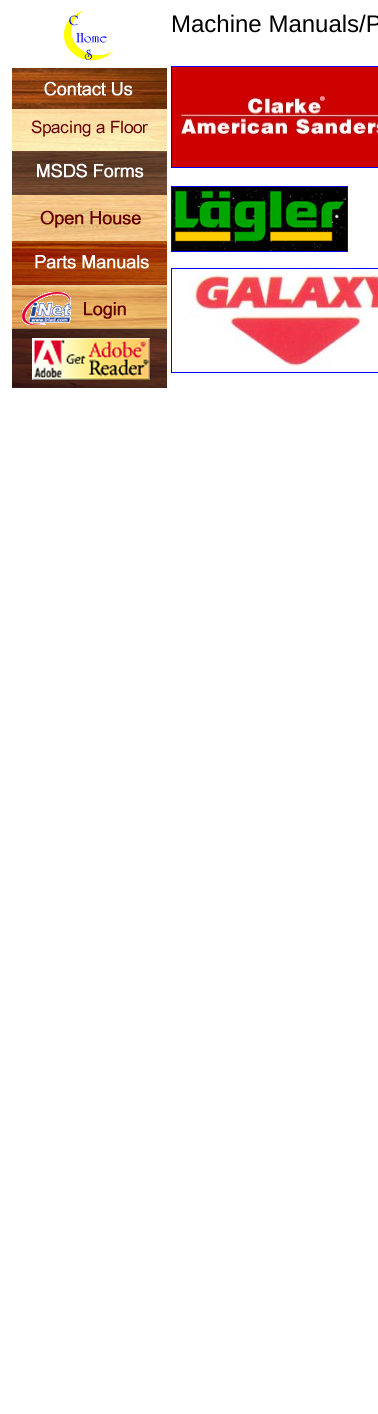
#include <cairo.h>
#include <math.h>
#include <stddef.h>

static cairo_t *c;
static void C(unsigned color){cairo_set_source_rgb(c, (color >> 16) / 255.0, (color >> 8 & 255) / 255.0, (color & 255) / 255.0);}
static void F(const char *family, double size, int italic, int bold){cairo_select_font_face(c, family, italic ? CAIRO_FONT_SLANT_ITALIC : CAIRO_FONT_SLANT_NORMAL,bold ? CAIRO_FONT_WEIGHT_BOLD : CAIRO_FONT_WEIGHT_NORMAL);cairo_set_font_size(c, size);}
static void T(double x, double y, const char *s){cairo_move_to(c, x, y);cairo_show_text(c, s);}
static void I(const char *path, double x, double y, double w, double h){cairo_surface_t *image = cairo_image_surface_create_from_png(path);cairo_save(c);cairo_set_source_surface(c, image, x, y);cairo_rectangle(c, x, y, w, h);cairo_fill(c);cairo_restore(c);cairo_surface_destroy(image);}
int main(void) {
cairo_surface_t *surface = cairo_image_surface_create(CAIRO_FORMAT_RGB24, 378, 1414);
c = cairo_create(surface);
cairo_font_options_t *options = cairo_font_options_create();
cairo_font_options_set_hint_metrics(options, CAIRO_HINT_METRICS_OFF);
cairo_font_options_set_hint_style(options, CAIRO_HINT_STYLE_NONE);
cairo_set_font_options(c, options);
cairo_set_miter_limit(c, 4);
C(0xffffff);
cairo_paint(c);
I("1.png",64,10,50,50);
F("Liberation Sans",24,0,0);
C(0x000000);
T(171,32,"Machine Manuals/P");
I("2.png",12,68,155,320);
cairo_rectangle(c,171.5,66.5,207,101);
C(0x0000ee);
cairo_set_line_width(c,1);
cairo_stroke(c);
I("3.png",172,67,206,100);
cairo_rectangle(c,171.5,186.5,176,65);
cairo_stroke(c);
I("4.png",172,187,175,64);
cairo_rectangle(c,171.5,268.5,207,104);
cairo_stroke(c);
I("5.png",188,269,190,97);
cairo_surface_write_to_png(surface, "o.png");
cairo_font_options_destroy(options);
cairo_destroy(c);
cairo_surface_destroy(surface);
return 0;
}
